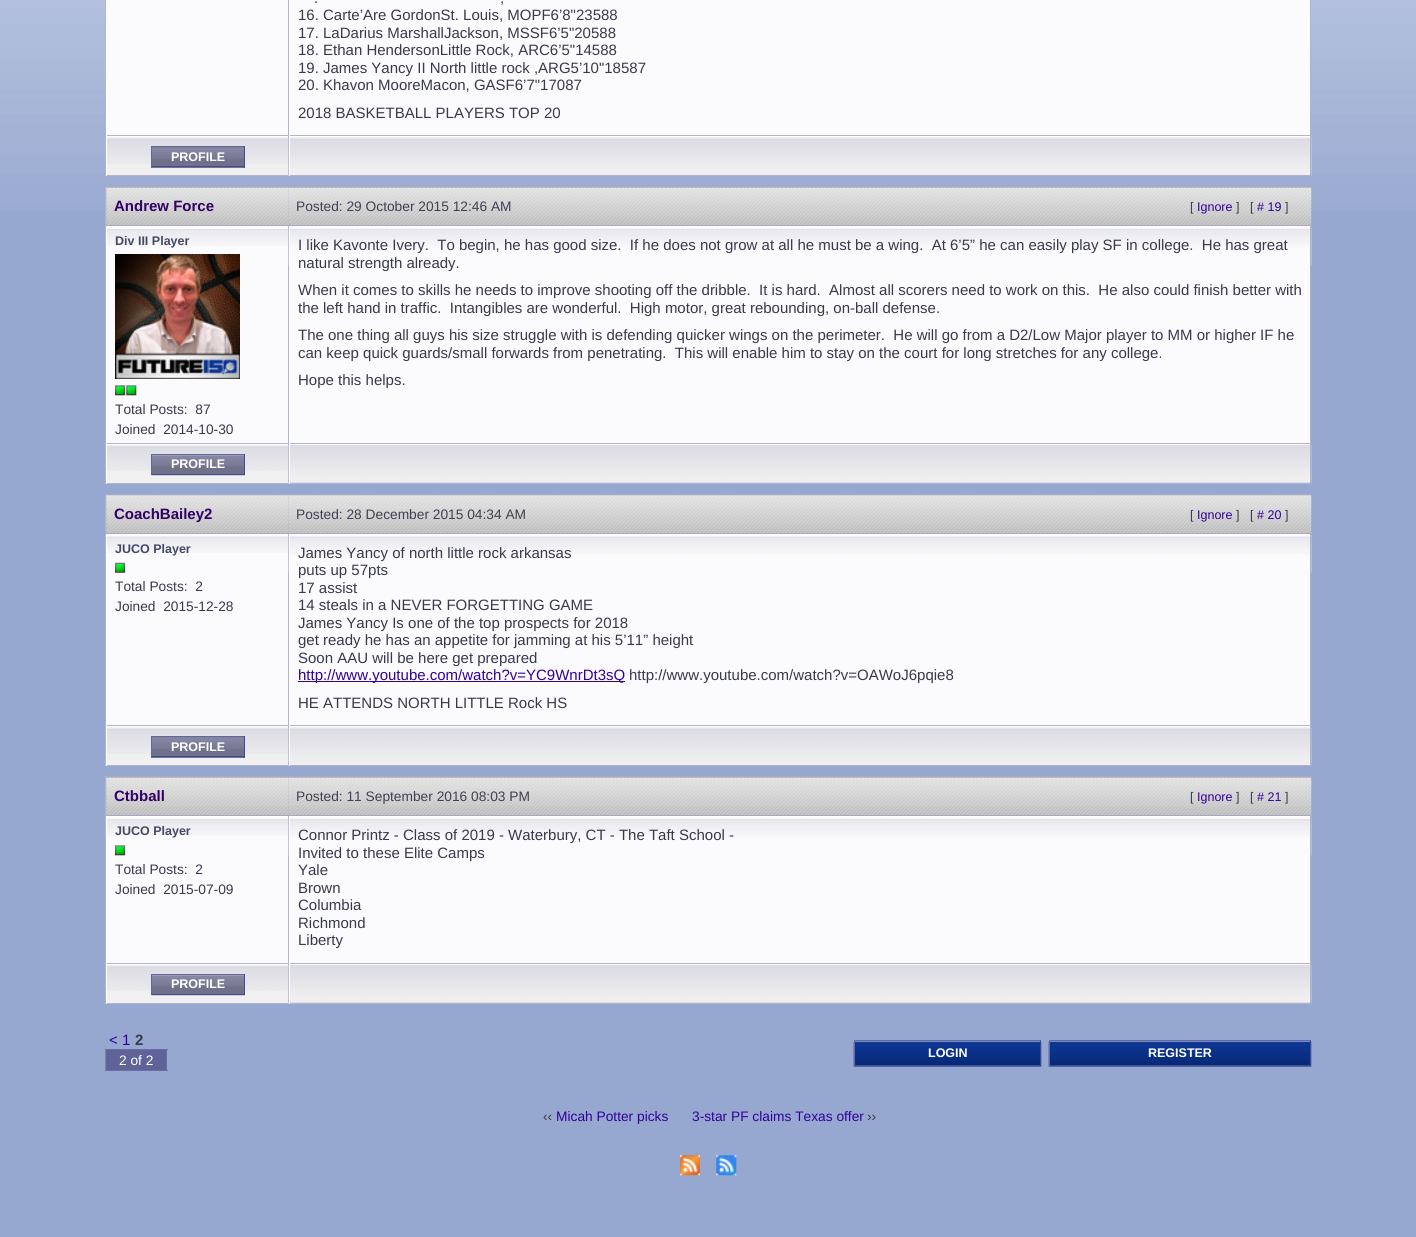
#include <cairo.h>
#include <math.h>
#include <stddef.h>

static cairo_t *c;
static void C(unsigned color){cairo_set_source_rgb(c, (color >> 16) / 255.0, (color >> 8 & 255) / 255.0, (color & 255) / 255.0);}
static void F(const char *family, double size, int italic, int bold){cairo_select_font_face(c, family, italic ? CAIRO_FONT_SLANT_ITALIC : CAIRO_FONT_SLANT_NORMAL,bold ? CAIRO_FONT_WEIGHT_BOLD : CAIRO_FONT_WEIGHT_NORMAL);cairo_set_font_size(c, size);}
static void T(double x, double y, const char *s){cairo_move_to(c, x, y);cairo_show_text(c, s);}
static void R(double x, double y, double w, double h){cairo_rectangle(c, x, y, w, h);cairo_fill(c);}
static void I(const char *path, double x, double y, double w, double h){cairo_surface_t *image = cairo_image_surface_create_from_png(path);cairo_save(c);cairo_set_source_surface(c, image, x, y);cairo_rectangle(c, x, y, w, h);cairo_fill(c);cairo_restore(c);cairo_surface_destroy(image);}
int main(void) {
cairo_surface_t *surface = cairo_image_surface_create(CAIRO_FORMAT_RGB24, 1416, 1237);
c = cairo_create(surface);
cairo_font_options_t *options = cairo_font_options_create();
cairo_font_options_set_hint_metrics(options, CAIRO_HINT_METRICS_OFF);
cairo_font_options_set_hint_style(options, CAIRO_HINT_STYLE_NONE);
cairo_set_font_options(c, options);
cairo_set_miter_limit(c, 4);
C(0x96a8d0);
cairo_paint(c);
I("1.png",0,0,1416,211);
C(0xb2b3ce);
R(105,0,1,176);
C(0xfbfbfd);
R(107,0,181,135);
C(0xb2b3ce);
R(288,0,1,136);
R(106,135,183,1);
C(0xffffff);
R(106,0,1,136);
C(0xfbfbfd);
R(290,0,1020,135);
C(0xb2b3ce);
R(1310,0,1,136);
R(289,135,1022,1);
C(0xffffff);
R(289,0,1,136);
F("Liberation Sans",15,0,0);
C(0x38394b);
T(314,3,".");
T(500,3,",");
T(298,20,"16. Carte’Are GordonSt. Louis, MOPF6’8\"23588");
T(298,38,"17. LaDarius MarshallJackson, MSSF6’5\"20588");
T(298,55,"18. Ethan HendersonLittle Rock, ARC6’5\"14588");
T(298,73,"19. James Yancy II North little rock ,ARG5’10\"18587");
T(298,90,"20. Khavon MooreMacon, GASF6’7\"17087");
T(298,118,"2018 BASKETBALL PLAYERS TOP 20");
C(0xf0f0f0);
R(107,137,181,38);
I("2.png",107,138,181,26);
C(0xffffff);
R(106,136,1205,1);
C(0xb2b3ce);
R(288,136,1,40);
R(106,175,183,1);
C(0xffffff);
R(106,136,1,40);
C(0x808295);
R(152,147,92,21);
I("3.png",152,148,92,20);
C(0x6266a6);
R(151,146,94,1);
C(0x44488e);
R(244,146,1,22);
R(151,166,94,1);
C(0x6266a6);
R(151,146,1,22);
F("Liberation Sans",12.5,0,1);
C(0xffffff);
T(171,161,"PROFILE");
C(0xf0f0f0);
R(290,137,1020,1);
I("4.png",288,137,1024,39);
C(0xb2b3ce);
R(1310,136,1,40);
R(289,175,1022,1);
C(0xffffff);
R(289,136,1,40);
C(0xb2b3ce);
R(105,186,1,298);
I("5.png",106,187,183,38);
C(0xa7a9c7);
R(106,186,183,1);
R(106,225,183,1);
F("Liberation Sans",15,0,1);
C(0x330066);
T(114,211,"Andrew Force");
I("6.png",288,186,1024,41);
C(0xa7a9c7);
R(289,186,1022,1);
R(289,225,1022,1);
F("Liberation Sans",13.75,0,0);
C(0x404055);
T(296,211,"Posted: 29 October 2015 12:46 AM");
F("Liberation Sans",12.5,0,0);
C(0x38394b);
T(1190,211,"[");
C(0x330099);
T(1197,211,"Ignore");
C(0x38394b);
T(1236,211,"]");
T(1250,211,"[");
C(0x330099);
T(1257,211,"# 19");
C(0x38394b);
T(1285,211,"]");
C(0xfbfbfd);
R(107,227,181,216);
I("7.png",107,229,181,17);
C(0xffffff);
R(106,226,1205,1);
C(0xb2b3ce);
R(288,226,1,218);
R(106,443,183,1);
C(0xffffff);
R(106,226,1,218);
F("Liberation Sans",12.5,0,1);
C(0x424a65);
T(115,245,"Div III Player");
I("8.png",115,254,125,125);
I("9.png",115,385,11,11);
I("10.png",126,385,11,11);
F("Liberation Sans",13.75,0,0);
C(0x38394b);
T(115,414,"Total Posts:  87");
T(115,434,"Joined  2014-10-30");
C(0xfbfbfd);
R(290,227,1020,216);
I("11.png",288,227,1024,39);
C(0xb2b3ce);
R(1310,226,1,218);
R(289,443,1022,1);
C(0xffffff);
R(289,226,1,218);
F("Liberation Sans",15,0,0);
C(0x38394b);
T(298,250,"I like Kavonte Ivery.  To begin, he has good size.  If he does not grow at all he must be a wing.  At 6’5” he can easily play SF in college.  He has great");
T(298,268,"natural strength already.");
T(298,295,"When it comes to skills he needs to improve shooting off the dribble.  It is hard.  Almost all scorers need to work on this.  He also could finish better with");
T(298,313,"the left hand in traffic.  Intangibles are wonderful.  High motor, great rebounding, on-ball defense.");
T(298,340,"The one thing all guys his size struggle with is defending quicker wings on the perimeter.  He will go from a D2/Low Major player to MM or higher IF he");
T(298,358,"can keep quick guards/small forwards from penetrating.  This will enable him to stay on the court for long stretches for any college.");
T(298,385,"Hope this helps.");
C(0xf0f0f0);
R(107,445,181,38);
I("12.png",107,445,181,26);
C(0xffffff);
R(106,444,1205,1);
C(0xb2b3ce);
R(288,444,1,40);
R(106,483,183,1);
C(0xffffff);
R(106,444,1,40);
I("13.png",151,455,94,21);
C(0x6266a6);
R(151,454,94,1);
C(0x44488e);
R(244,454,1,21);
R(151,474,94,1);
C(0x6266a6);
R(151,454,1,21);
F("Liberation Sans",12.5,0,1);
C(0xffffff);
T(171,468,"PROFILE");
I("14.png",288,445,1024,38);
C(0xb2b3ce);
R(1310,444,1,40);
R(289,483,1022,1);
C(0xffffff);
R(289,444,1,40);
C(0xb2b3ce);
R(105,494,1,272);
I("15.png",106,495,183,38);
C(0xa7a9c7);
R(106,494,183,1);
R(106,533,183,1);
F("Liberation Sans",15,0,1);
C(0x330066);
T(114,519,"CoachBailey2");
I("16.png",288,494,1024,40);
C(0xa7a9c7);
R(289,494,1022,1);
R(289,533,1022,1);
F("Liberation Sans",13.75,0,0);
C(0x404055);
T(296,519,"Posted: 28 December 2015 04:34 AM");
F("Liberation Sans",12.5,0,0);
C(0x38394b);
T(1190,519,"[");
C(0x330099);
T(1197,519,"Ignore");
C(0x38394b);
T(1236,519,"]");
T(1250,519,"[");
C(0x330099);
T(1257,519,"# 20");
C(0x38394b);
T(1285,519,"]");
C(0xfbfbfd);
R(107,535,181,190);
I("17.png",107,536,181,17);
C(0xffffff);
R(106,534,1205,1);
C(0xb2b3ce);
R(288,534,1,192);
R(106,725,183,1);
C(0xffffff);
R(106,534,1,192);
F("Liberation Sans",12.5,0,1);
C(0x424a65);
T(115,553,"JUCO Player");
I("18.png",115,562,11,11);
F("Liberation Sans",13.75,0,0);
C(0x38394b);
T(115,591,"Total Posts:  2");
T(115,611,"Joined  2015-12-28");
C(0xfbfbfd);
R(290,535,1020,190);
I("19.png",288,535,1024,38);
C(0xb2b3ce);
R(1310,534,1,192);
R(289,725,1022,1);
C(0xffffff);
R(289,534,1,192);
F("Liberation Sans",15,0,0);
C(0x38394b);
T(298,558,"James Yancy of north little rock arkansas");
T(298,575,"puts up 57pts");
T(298,593,"17 assist");
T(298,610,"14 steals in a NEVER FORGETTING GAME");
T(298,628,"James Yancy Is one of the top prospects for 2018");
T(298,645,"get ready he has an appetite for jamming at his 5’11” height");
T(298,663,"Soon AAU will be here get prepared");
C(0x330099);
R(298,681,327,1);
T(298,680,"http://www.youtube.com/watch?v=YC9WnrDt3sQ");
C(0x38394b);
T(629,680,"http://www.youtube.com/watch?v=OAWoJ6pqie8");
T(298,708,"HE ATTENDS NORTH LITTLE Rock HS");
C(0xf0f0f0);
R(107,727,181,38);
I("20.png",107,728,181,26);
C(0xffffff);
R(106,726,1205,1);
C(0xb2b3ce);
R(288,726,1,40);
R(106,765,183,1);
C(0xffffff);
R(106,726,1,40);
C(0x808295);
R(152,737,92,21);
I("21.png",152,738,92,20);
C(0x6266a6);
R(151,736,94,1);
C(0x44488e);
R(244,736,1,22);
R(151,756,94,1);
C(0x6266a6);
R(151,736,1,22);
F("Liberation Sans",12.5,0,1);
C(0xffffff);
T(171,751,"PROFILE");
C(0xf0f0f0);
R(290,727,1020,1);
I("22.png",288,727,1024,39);
C(0xb2b3ce);
R(1310,726,1,40);
R(289,765,1022,1);
C(0xffffff);
R(289,726,1,40);
C(0xb2b3ce);
R(105,776,1,228);
I("5.png",106,777,183,38);
C(0xa7a9c7);
R(106,776,183,1);
R(106,815,183,1);
F("Liberation Sans",15,0,1);
C(0x330066);
T(114,801,"Ctbball");
I("23.png",288,776,1024,41);
C(0xa7a9c7);
R(289,776,1022,1);
R(289,815,1022,1);
F("Liberation Sans",13.75,0,0);
C(0x404055);
T(296,801,"Posted: 11 September 2016 08:03 PM");
F("Liberation Sans",12.5,0,0);
C(0x38394b);
T(1190,801,"[");
C(0x330099);
T(1197,801,"Ignore");
C(0x38394b);
T(1236,801,"]");
T(1250,801,"[");
C(0x330099);
T(1257,801,"# 21");
C(0x38394b);
T(1285,801,"]");
C(0xfbfbfd);
R(107,817,181,146);
I("7.png",107,819,181,17);
C(0xffffff);
R(106,816,1205,1);
C(0xb2b3ce);
R(288,816,1,148);
R(106,963,183,1);
C(0xffffff);
R(106,816,1,148);
F("Liberation Sans",12.5,0,1);
C(0x424a65);
T(115,835,"JUCO Player");
I("9.png",115,845,11,11);
F("Liberation Sans",13.75,0,0);
C(0x38394b);
T(115,874,"Total Posts:  2");
T(115,894,"Joined  2015-07-09");
C(0xfbfbfd);
R(290,817,1020,146);
I("11.png",288,817,1024,39);
C(0xb2b3ce);
R(1310,816,1,148);
R(289,963,1022,1);
C(0xffffff);
R(289,816,1,148);
F("Liberation Sans",15,0,0);
C(0x38394b);
T(298,840,"Connor Printz - Class of 2019 - Waterbury, CT - The Taft School -");
T(298,858,"Invited to these Elite Camps");
T(298,875,"Yale");
T(298,893,"Brown");
T(298,910,"Columbia");
T(298,928,"Richmond");
T(298,945,"Liberty");
C(0xf0f0f0);
R(107,965,181,38);
I("24.png",107,965,181,26);
C(0xffffff);
R(106,964,1205,1);
C(0xb2b3ce);
R(288,964,1,40);
R(106,1003,183,1);
C(0xffffff);
R(106,964,1,40);
I("25.png",151,975,94,21);
C(0x6266a6);
R(151,974,94,1);
C(0x44488e);
R(244,974,1,21);
R(151,994,94,1);
C(0x6266a6);
R(151,974,1,21);
F("Liberation Sans",12.5,0,1);
C(0xffffff);
T(171,988,"PROFILE");
I("26.png",288,965,1024,38);
C(0xb2b3ce);
R(1310,964,1,40);
R(289,1003,1022,1);
C(0xffffff);
R(289,964,1,40);
F("Liberation Sans",15,0,0);
C(0x330099);
T(109,1045,"< 1");
F("Liberation Sans",15,0,1);
C(0x38394b);
T(135,1045,"2");
C(0x696ea4);
R(105,1049,63,1);
R(166,1049,1,22);
R(105,1070,63,1);
C(0x5f6398);
R(106,1050,60,20);
C(0x7b81a9);
R(105,1050,1,20);
F("Liberation Sans",13.75,0,0);
C(0xffffff);
T(119,1065,"2 of 2");
I("27.png",853,1040,189,27);
C(0x6266a6);
R(854,1040,187,1);
C(0x44488e);
R(1040,1040,1,26);
R(854,1065,187,1);
C(0x6266a6);
R(854,1040,1,26);
F("Liberation Sans",12.5,0,1);
C(0xffffff);
T(928,1057,"LOGIN");
I("28.png",1048,1040,264,27);
C(0x6266a6);
R(1049,1040,262,1);
C(0x44488e);
R(1310,1040,1,26);
R(1049,1065,262,1);
C(0x6266a6);
R(1049,1040,1,26);
C(0xffffff);
T(1148,1057,"REGISTER");
F("Liberation Sans",13.75,0,0);
C(0x38394b);
T(543,1121,"‹‹");
C(0x330099);
T(556,1121,"Micah Potter picks");
T(692,1121,"3-star PF claims Texas offer");
C(0x38394b);
T(867,1121,"››");
I("29.png",680,1155,20,21);
I("30.png",716,1155,21,21);
cairo_surface_write_to_png(surface, "o.png");
cairo_font_options_destroy(options);
cairo_destroy(c);
cairo_surface_destroy(surface);
return 0;
}
